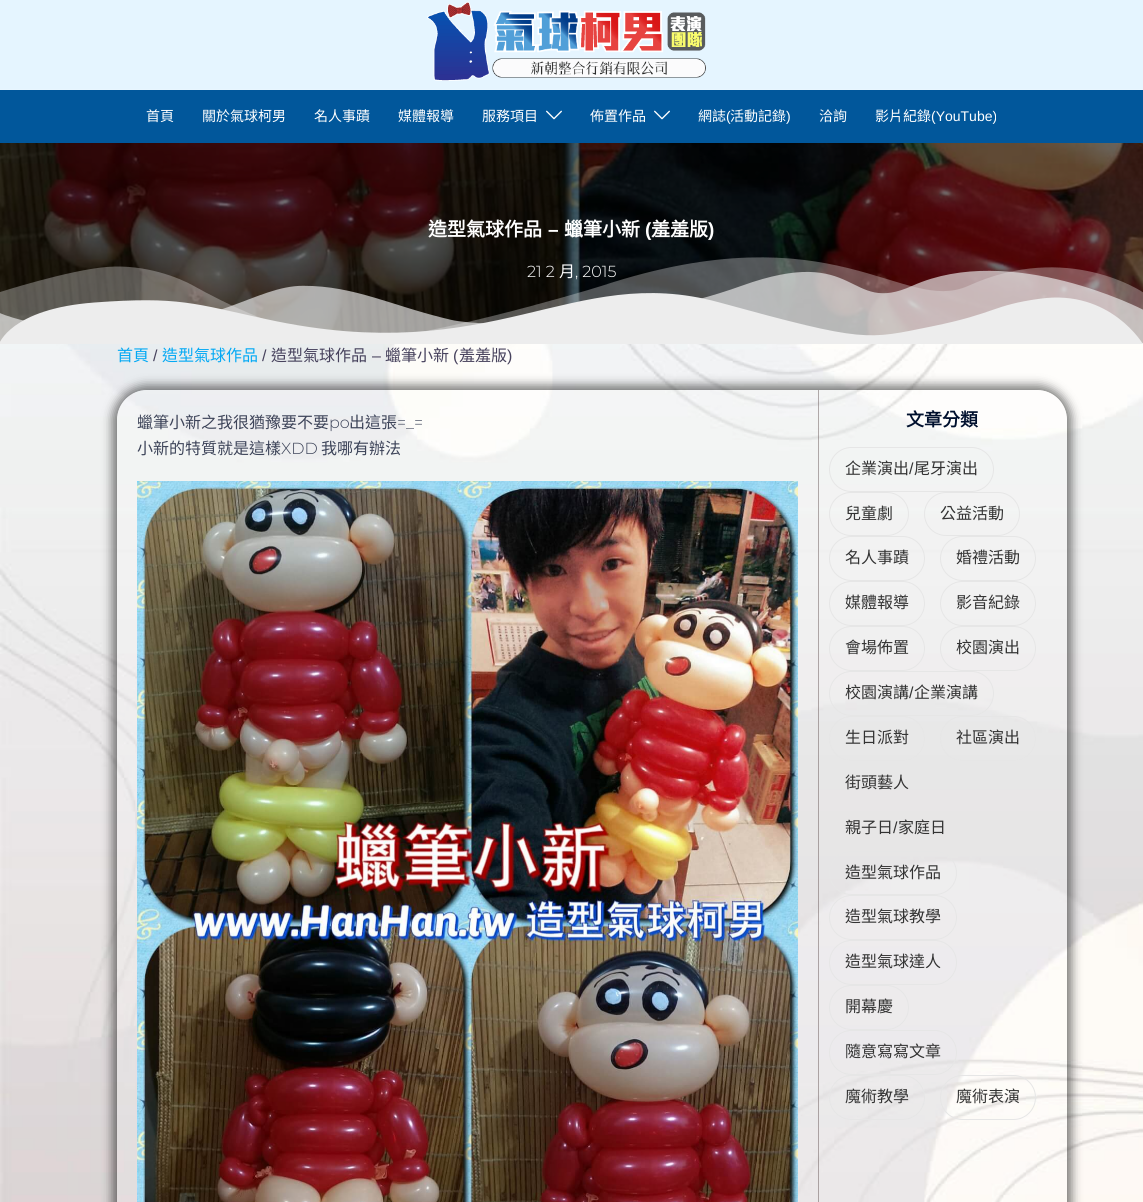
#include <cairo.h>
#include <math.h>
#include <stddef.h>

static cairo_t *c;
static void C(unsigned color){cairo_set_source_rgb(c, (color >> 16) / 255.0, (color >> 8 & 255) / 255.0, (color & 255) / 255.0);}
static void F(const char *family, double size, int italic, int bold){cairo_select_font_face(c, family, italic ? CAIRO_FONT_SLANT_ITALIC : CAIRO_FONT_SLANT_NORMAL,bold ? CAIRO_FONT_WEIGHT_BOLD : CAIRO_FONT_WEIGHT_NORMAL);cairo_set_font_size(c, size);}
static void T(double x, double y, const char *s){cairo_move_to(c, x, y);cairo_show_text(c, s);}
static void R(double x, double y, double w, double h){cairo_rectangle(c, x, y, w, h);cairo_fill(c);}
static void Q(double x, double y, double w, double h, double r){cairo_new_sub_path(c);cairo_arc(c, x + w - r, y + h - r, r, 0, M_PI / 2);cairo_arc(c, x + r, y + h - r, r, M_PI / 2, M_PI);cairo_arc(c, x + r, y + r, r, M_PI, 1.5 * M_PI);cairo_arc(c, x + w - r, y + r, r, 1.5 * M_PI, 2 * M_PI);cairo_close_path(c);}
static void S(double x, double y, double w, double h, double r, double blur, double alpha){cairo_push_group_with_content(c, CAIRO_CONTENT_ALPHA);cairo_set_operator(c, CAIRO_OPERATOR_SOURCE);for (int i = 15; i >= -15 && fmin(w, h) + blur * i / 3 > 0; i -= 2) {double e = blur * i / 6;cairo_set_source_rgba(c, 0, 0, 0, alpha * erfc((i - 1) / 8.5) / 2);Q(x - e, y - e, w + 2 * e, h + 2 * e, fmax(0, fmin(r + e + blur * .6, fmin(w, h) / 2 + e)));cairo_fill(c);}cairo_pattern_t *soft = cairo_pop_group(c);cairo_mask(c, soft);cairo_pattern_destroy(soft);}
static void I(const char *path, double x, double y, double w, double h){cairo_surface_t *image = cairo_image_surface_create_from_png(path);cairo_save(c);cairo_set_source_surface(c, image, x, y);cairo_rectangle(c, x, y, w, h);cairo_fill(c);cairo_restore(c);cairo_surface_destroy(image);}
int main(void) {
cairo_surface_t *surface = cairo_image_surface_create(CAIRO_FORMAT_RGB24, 1143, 1202);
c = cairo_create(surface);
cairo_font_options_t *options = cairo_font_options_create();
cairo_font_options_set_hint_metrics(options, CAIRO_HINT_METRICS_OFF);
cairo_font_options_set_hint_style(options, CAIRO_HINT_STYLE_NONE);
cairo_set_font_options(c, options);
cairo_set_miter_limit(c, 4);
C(0xffffff);
cairo_paint(c);
I("1.png",0,343,1143,859);
C(0xe5f5ff);
R(0,0,1143,89);
C(0xe8f6ff);
R(0,89,1143,1);
I("2.png",427,1,279,80);
C(0x01579b);
R(0,90,1143,53);
F("Noto Sans CJK TC",14,0,0);
C(0xffffff);
T(146,121,"首頁");
T(202,121,"關於氣球柯男");
T(314,121,"名人事蹟");
T(398,121,"媒體報導");
T(482,121,"服務項目");
I("3.png",546,110,16,10);
T(590,121,"佈置作品");
I("3.png",654,110,16,10);
T(698,121,"網誌");
F("Liberation Sans",14,0,0);
T(726,121,"(");
F("Noto Sans CJK TC",14,0,0);
T(730,121,"活動記錄");
F("Liberation Sans",14,0,0);
T(786,121,")");
F("Noto Sans CJK TC",14,0,0);
T(819,121,"洽詢");
T(875,121,"影片紀錄");
F("Liberation Sans",14,0,0);
T(931,121,"(YouTube)");
I("4.png",0,143,1143,200);
F("Noto Sans CJK TC",19,0,1);
T(428,236,"造型氣球作品");
F("Liberation Sans",19,0,1);
T(548,236,"–");
F("Noto Sans CJK TC",19,0,1);
T(564,236,"蠟筆小新");
F("Liberation Sans",19,0,1);
T(645,236,"(");
F("Noto Sans CJK TC",19,0,1);
T(651,236,"羞羞版");
F("Liberation Sans",19,0,1);
T(708,236,")");
I("5.png",0,257,1143,87);
F("Montserrat Light",16,0,0);
T(527,277,"21 2");
F("Noto Sans CJK TC",16,0,0);
T(559,277,"月");
F("Montserrat Light",16,0,0);
T(575,277,", 2015");
F("Noto Sans CJK TC",16,0,0);
C(0x03a9f4);
T(117,361,"首頁");
F("Liberation Sans",16,0,0);
C(0x47425d);
T(153,361,"/");
F("Noto Sans CJK TC",16,0,0);
C(0x03a9f4);
T(162,361,"造型氣球作品");
F("Liberation Sans",16,0,0);
C(0x47425d);
T(262,361,"/");
F("Noto Sans CJK TC",16,0,0);
T(271,361,"造型氣球作品");
F("Liberation Sans",16,0,0);
T(372,361,"–");
F("Noto Sans CJK TC",16,0,0);
T(385,361,"蠟筆小新");
F("Liberation Sans",16,0,0);
T(453,361,"(");
F("Noto Sans CJK TC",16,0,0);
T(459,361,"羞羞版");
F("Liberation Sans",16,0,0);
T(507,361,")");
cairo_save(c);
cairo_set_fill_rule(c,CAIRO_FILL_RULE_EVEN_ODD);
cairo_new_path(c);
cairo_move_to(c,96,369);
cairo_line_to(c,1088,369);
cairo_line_to(c,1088,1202);
cairo_line_to(c,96,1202);
cairo_close_path(c);
cairo_move_to(c,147,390);
cairo_line_to(c,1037,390);
cairo_curve_to(c,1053.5,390,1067,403.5,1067,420);
cairo_line_to(c,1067,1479);
cairo_curve_to(c,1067,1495.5,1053.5,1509,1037,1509);
cairo_line_to(c,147,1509);
cairo_curve_to(c,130.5,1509,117,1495.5,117,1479);
cairo_line_to(c,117,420);
cairo_curve_to(c,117,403.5,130.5,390,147,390);
cairo_close_path(c);
cairo_clip(c);
C(0x000000);
S(112,385,960,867,35,5,.5);
cairo_restore(c);
cairo_set_source_rgba(c,1,1,1,0.21);
Q(117,390,950,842,30);
cairo_fill(c);
F("Noto Sans CJK TC",16,0,0);
C(0x3d4459);
T(137,428,"蠟筆小新之我很猶豫要不要");
F("Montserrat Light",16,0,0);
T(329,428,"po");
F("Noto Sans CJK TC",16,0,0);
T(349,428,"出這張");
F("Montserrat Light",16,0,0);
T(397,428,"=_=");
F("Noto Sans CJK TC",16,0,0);
T(137,454,"小新的特質就是這樣");
F("Montserrat Light",16,0,0);
T(281,454,"XDD");
F("Noto Sans CJK TC",16,0,0);
T(321,454,"我哪有辦法");
I("6.png",137,481,661,721);
cairo_set_source_rgba(c,0.384,0.318,0.318,0.47);
R(818,390,1,812);
F("Noto Sans CJK TC",18,0,1);
C(0x00102e);
T(906,426,"文章分類");
Q(829.5,447.5,164,44,22);
C(0xe6e6e6);
cairo_set_line_width(c,1);
cairo_stroke(c);
F("Noto Sans CJK TC",16,0,0);
C(0x333333);
T(845,474,"企業演出");
F("Liberation Sans",16,0,0);
T(909,474,"/");
F("Noto Sans CJK TC",16,0,0);
T(914,474,"尾牙演出");
Q(829.5,492.5,79,43,21.5);
C(0xe6e6e6);
cairo_stroke(c);
C(0x333333);
T(845,519,"兒童劇");
Q(924.5,492.5,95,43,21.5);
C(0xe6e6e6);
cairo_stroke(c);
C(0x333333);
T(940,519,"公益活動");
Q(829.5,536.5,95,44,22);
C(0xe6e6e6);
cairo_stroke(c);
C(0x333333);
T(845,563,"名人事蹟");
Q(940.5,536.5,95,44,22);
C(0xe6e6e6);
cairo_stroke(c);
C(0x333333);
T(956,563,"婚禮活動");
Q(829.5,581.5,95,44,22);
C(0xe6e6e6);
cairo_stroke(c);
C(0x333333);
T(845,608,"媒體報導");
Q(940.5,581.5,95,44,22);
C(0xe6e6e6);
cairo_stroke(c);
C(0x333333);
T(956,608,"影音紀錄");
Q(829.5,626.5,95,44,22);
C(0xe6e6e6);
cairo_stroke(c);
C(0x333333);
T(845,653,"會場佈置");
Q(940.5,626.5,95,44,22);
C(0xe6e6e6);
cairo_stroke(c);
C(0x333333);
T(956,653,"校園演出");
Q(829.5,671.5,164,44,22);
C(0xe6e6e6);
cairo_stroke(c);
C(0x333333);
T(845,698,"校園演講");
F("Liberation Sans",16,0,0);
T(909,698,"/");
F("Noto Sans CJK TC",16,0,0);
T(914,698,"企業演講");
Q(829.5,716.5,95,44,22);
C(0xe6e6e6);
cairo_stroke(c);
C(0x333333);
T(845,743,"生日派對");
Q(940.5,716.5,95,44,22);
C(0xe6e6e6);
cairo_stroke(c);
C(0x333333);
T(956,743,"社區演出");
T(845,788,"街頭藝人");
T(845,833,"親子日");
F("Liberation Sans",16,0,0);
T(893,833,"/");
F("Noto Sans CJK TC",16,0,0);
T(898,833,"家庭日");
Q(829.5,851.5,127,43,21.5);
C(0xe6e6e6);
cairo_stroke(c);
C(0x333333);
T(845,878,"造型氣球作品");
Q(829.5,895.5,127,44,22);
C(0xe6e6e6);
cairo_stroke(c);
C(0x333333);
T(845,922,"造型氣球教學");
Q(829.5,940.5,127,44,22);
C(0xe6e6e6);
cairo_stroke(c);
C(0x333333);
T(845,967,"造型氣球達人");
Q(829.5,985.5,79,44,22);
C(0xe6e6e6);
cairo_stroke(c);
C(0x333333);
T(845,1012,"開幕慶");
Q(829.5,1030.5,127,44,22);
C(0xe6e6e6);
cairo_stroke(c);
C(0x333333);
T(845,1057,"隨意寫寫文章");
Q(829.5,1075.5,95,44,22);
C(0xe6e6e6);
cairo_stroke(c);
C(0x333333);
T(845,1102,"魔術教學");
Q(940.5,1075.5,95,44,22);
C(0xe6e6e6);
cairo_stroke(c);
C(0x333333);
T(956,1102,"魔術表演");
cairo_surface_write_to_png(surface, "o.png");
cairo_font_options_destroy(options);
cairo_destroy(c);
cairo_surface_destroy(surface);
return 0;
}
